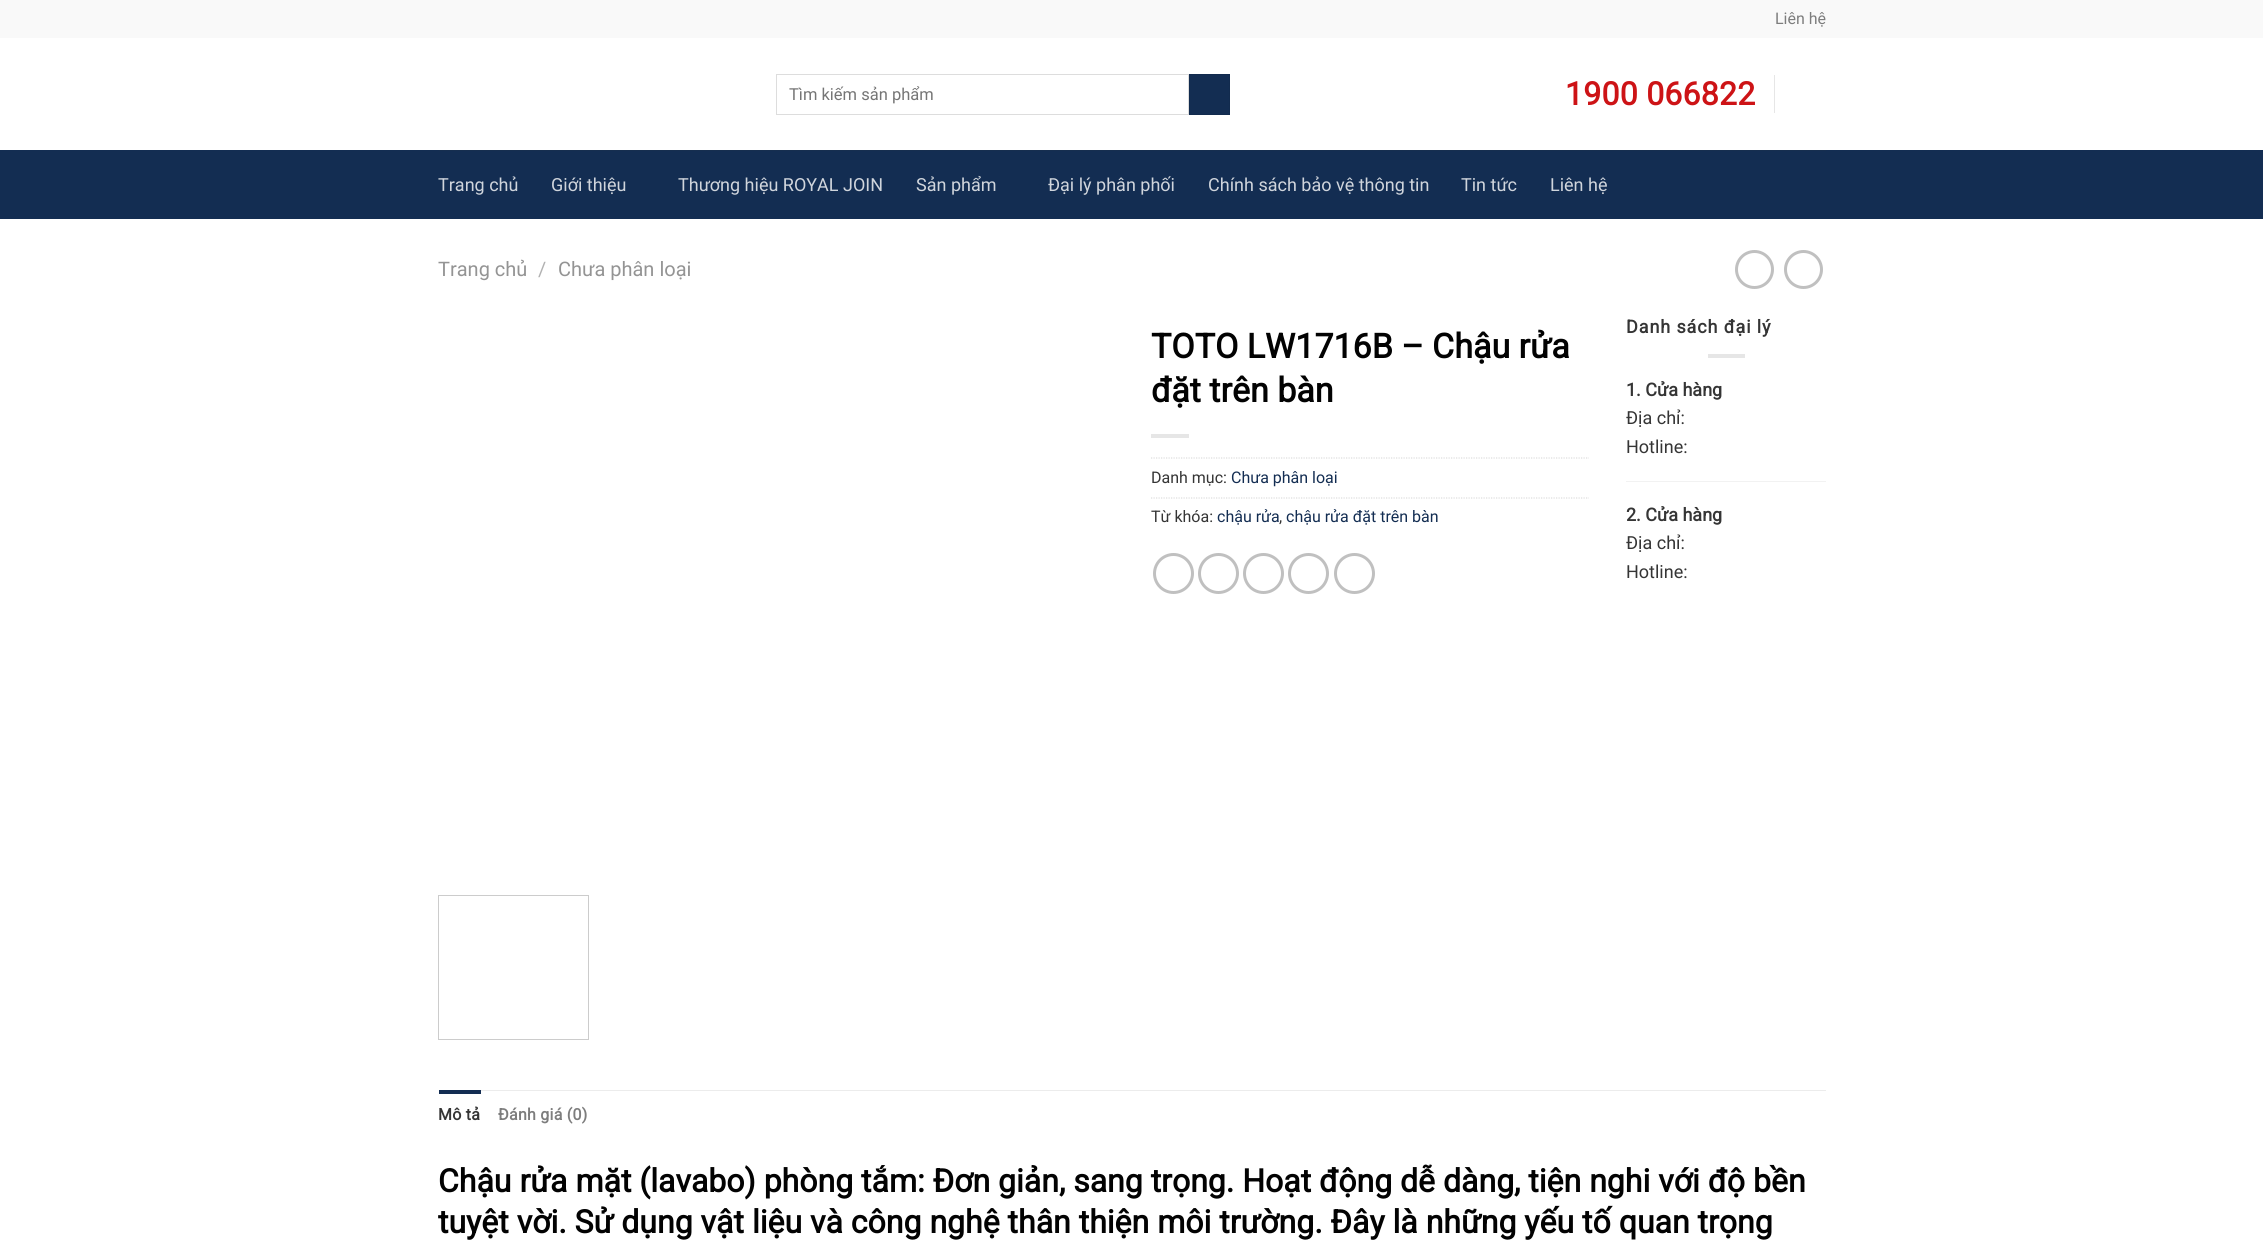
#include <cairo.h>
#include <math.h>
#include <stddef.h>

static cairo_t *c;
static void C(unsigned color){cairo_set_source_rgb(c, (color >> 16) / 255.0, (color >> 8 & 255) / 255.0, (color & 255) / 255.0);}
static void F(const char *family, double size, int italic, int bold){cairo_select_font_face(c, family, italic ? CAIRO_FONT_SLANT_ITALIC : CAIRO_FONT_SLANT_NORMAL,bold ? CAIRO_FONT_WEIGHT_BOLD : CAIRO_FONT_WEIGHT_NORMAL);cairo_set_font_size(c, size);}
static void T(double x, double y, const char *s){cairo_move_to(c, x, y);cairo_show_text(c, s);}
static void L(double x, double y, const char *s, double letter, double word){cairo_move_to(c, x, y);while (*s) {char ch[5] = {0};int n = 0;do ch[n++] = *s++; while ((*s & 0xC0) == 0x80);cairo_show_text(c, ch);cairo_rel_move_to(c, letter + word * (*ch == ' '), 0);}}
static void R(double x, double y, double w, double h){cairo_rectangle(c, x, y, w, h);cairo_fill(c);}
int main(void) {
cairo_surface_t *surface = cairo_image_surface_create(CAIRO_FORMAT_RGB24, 2263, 1246);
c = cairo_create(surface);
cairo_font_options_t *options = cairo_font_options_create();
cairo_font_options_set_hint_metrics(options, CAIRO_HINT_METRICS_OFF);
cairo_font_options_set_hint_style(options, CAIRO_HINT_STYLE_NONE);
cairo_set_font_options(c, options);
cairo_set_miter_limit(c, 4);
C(0xffffff);
cairo_paint(c);
C(0xf9f9f9);
R(0,0,2263,38);
F("Roboto",16,0,0);
C(0x7d7d7d);
T(1775,24,"Liên hệ");
cairo_rectangle(c,776.5,74.5,412,40);
C(0xdddddd);
cairo_set_line_width(c,1);
cairo_stroke(c);
F("Roboto",16.5,0,0);
C(0x757575);
T(789,100,"Tìm kiếm sản phẩm");
C(0x132d52);
cairo_rectangle(c,1189.5,74.5,40,40);
cairo_fill_preserve(c);
C(0x122b4e);
cairo_stroke(c);
F("Roboto",32,0,1);
C(0xcd1316);
L(1565,105,"1900 066822",.25,0);
C(0xe6e6e6);
R(1774,75,1,38);
C(0x132d52);
R(0,150,2263,69);
C(0x162e4f);
R(439,150,1387,1);
F("Roboto",18,0,0);
C(0xd0d5dc);
T(438,191,"Trang chủ");
T(551,191,"Giới thiệu");
T(678,191,"Thương hiệu ROYAL JOIN");
T(916,191,"Sản phẩm");
T(1048,191,"Đại lý phân phối");
T(1208,191,"Chính sách bảo vệ thông tin");
T(1461,191,"Tin tức");
T(1550,191,"Liên hệ");
F("Roboto",20,0,0);
C(0x949494);
T(438,276,"Trang chủ");
C(0xb2b2b2);
T(538,276,"/");
C(0x949494);
T(558,276,"Chưa phân loại");
cairo_new_path(c);
cairo_arc(c,1754.5,269.5,18,0,2 * M_PI);
C(0xc0c0c0);
cairo_set_line_width(c,3);
cairo_stroke(c);
cairo_arc(c,1803.5,269.5,18,0,2 * M_PI);
cairo_stroke(c);
F("Roboto",34,0,1);
C(0x020202);
T(1151,358,"TOTO LW1716B – Chậu rửa");
T(1151,402,"đặt trên bàn");
C(0xe6e6e6);
R(1151,434,38,4);
cairo_new_path(c);
cairo_move_to(c,1151,458);
cairo_line_to(c,1589,458);
C(0xdddddd);
cairo_set_line_width(c,1.2);
cairo_set_dash(c,(double[]){1.25,1.25},2,0);
cairo_stroke(c);
F("Roboto",16,0,0);
C(0x353535);
T(1151,483,"Danh mục:");
C(0x132d52);
T(1231,483,"Chưa phân loại");
cairo_new_path(c);
cairo_move_to(c,1151,498);
cairo_line_to(c,1589,498);
C(0xdddddd);
cairo_stroke(c);
C(0x353535);
T(1151,522,"Từ khóa:");
C(0x132d52);
T(1217,522,"chậu rửa");
C(0x353535);
T(1279,522,",");
C(0x132d52);
T(1286,522,"chậu rửa đặt trên bàn");
cairo_new_path(c);
cairo_arc(c,1173.5,573.5,19,0,2 * M_PI);
C(0xc0c0c0);
cairo_set_line_width(c,3);
cairo_set_dash(c,NULL,0,0);
cairo_stroke(c);
cairo_arc(c,1218.5,573.5,19,0,2 * M_PI);
cairo_stroke(c);
cairo_arc(c,1263.5,573.5,19,0,2 * M_PI);
cairo_stroke(c);
cairo_arc(c,1308.5,573.5,19,0,2 * M_PI);
cairo_stroke(c);
cairo_arc(c,1354.5,573.5,19,0,2 * M_PI);
cairo_stroke(c);
F("Roboto",18,0,1);
C(0x353535);
L(1626,333,"Danh sách đại lý",.9,0);
C(0xe6e6e6);
R(1708,354,37,4);
C(0x353535);
T(1626,396,"1. Cửa hàng");
F("Roboto",18,0,0);
T(1626,424,"Địa chỉ:");
T(1626,453,"Hotline:");
C(0xf2f2f2);
R(1626,481,200,1);
F("Roboto",18,0,1);
C(0x353535);
T(1626,521,"2. Cửa hàng");
F("Roboto",18,0,0);
T(1626,549,"Địa chỉ:");
T(1626,578,"Hotline:");
cairo_rectangle(c,438.5,895.5,150,144);
C(0xcccccc);
cairo_set_line_width(c,1);
cairo_stroke(c);
C(0xececec);
R(481,1090,1345,1);
C(0x132d52);
R(439,1090,42,4);
F("Roboto",16,0,1);
C(0x353535);
L(438,1120,"Mô tả",.25,0);
C(0x7d7d7d);
L(498,1120,"Đánh giá (0)",.25,0);
F("Roboto",32,0,1);
C(0x020202);
T(438,1192,"Chậu rửa mặt (lavabo) phòng tắm: Đơn giản, sang trọng. Hoạt động dễ dàng, tiện nghi với độ bền");
T(438,1233,"tuyệt vời. Sử dụng vật liệu và công nghệ thân thiện môi trường. Đây là những yếu tố quan trọng");
cairo_surface_write_to_png(surface, "o.png");
cairo_font_options_destroy(options);
cairo_destroy(c);
cairo_surface_destroy(surface);
return 0;
}
